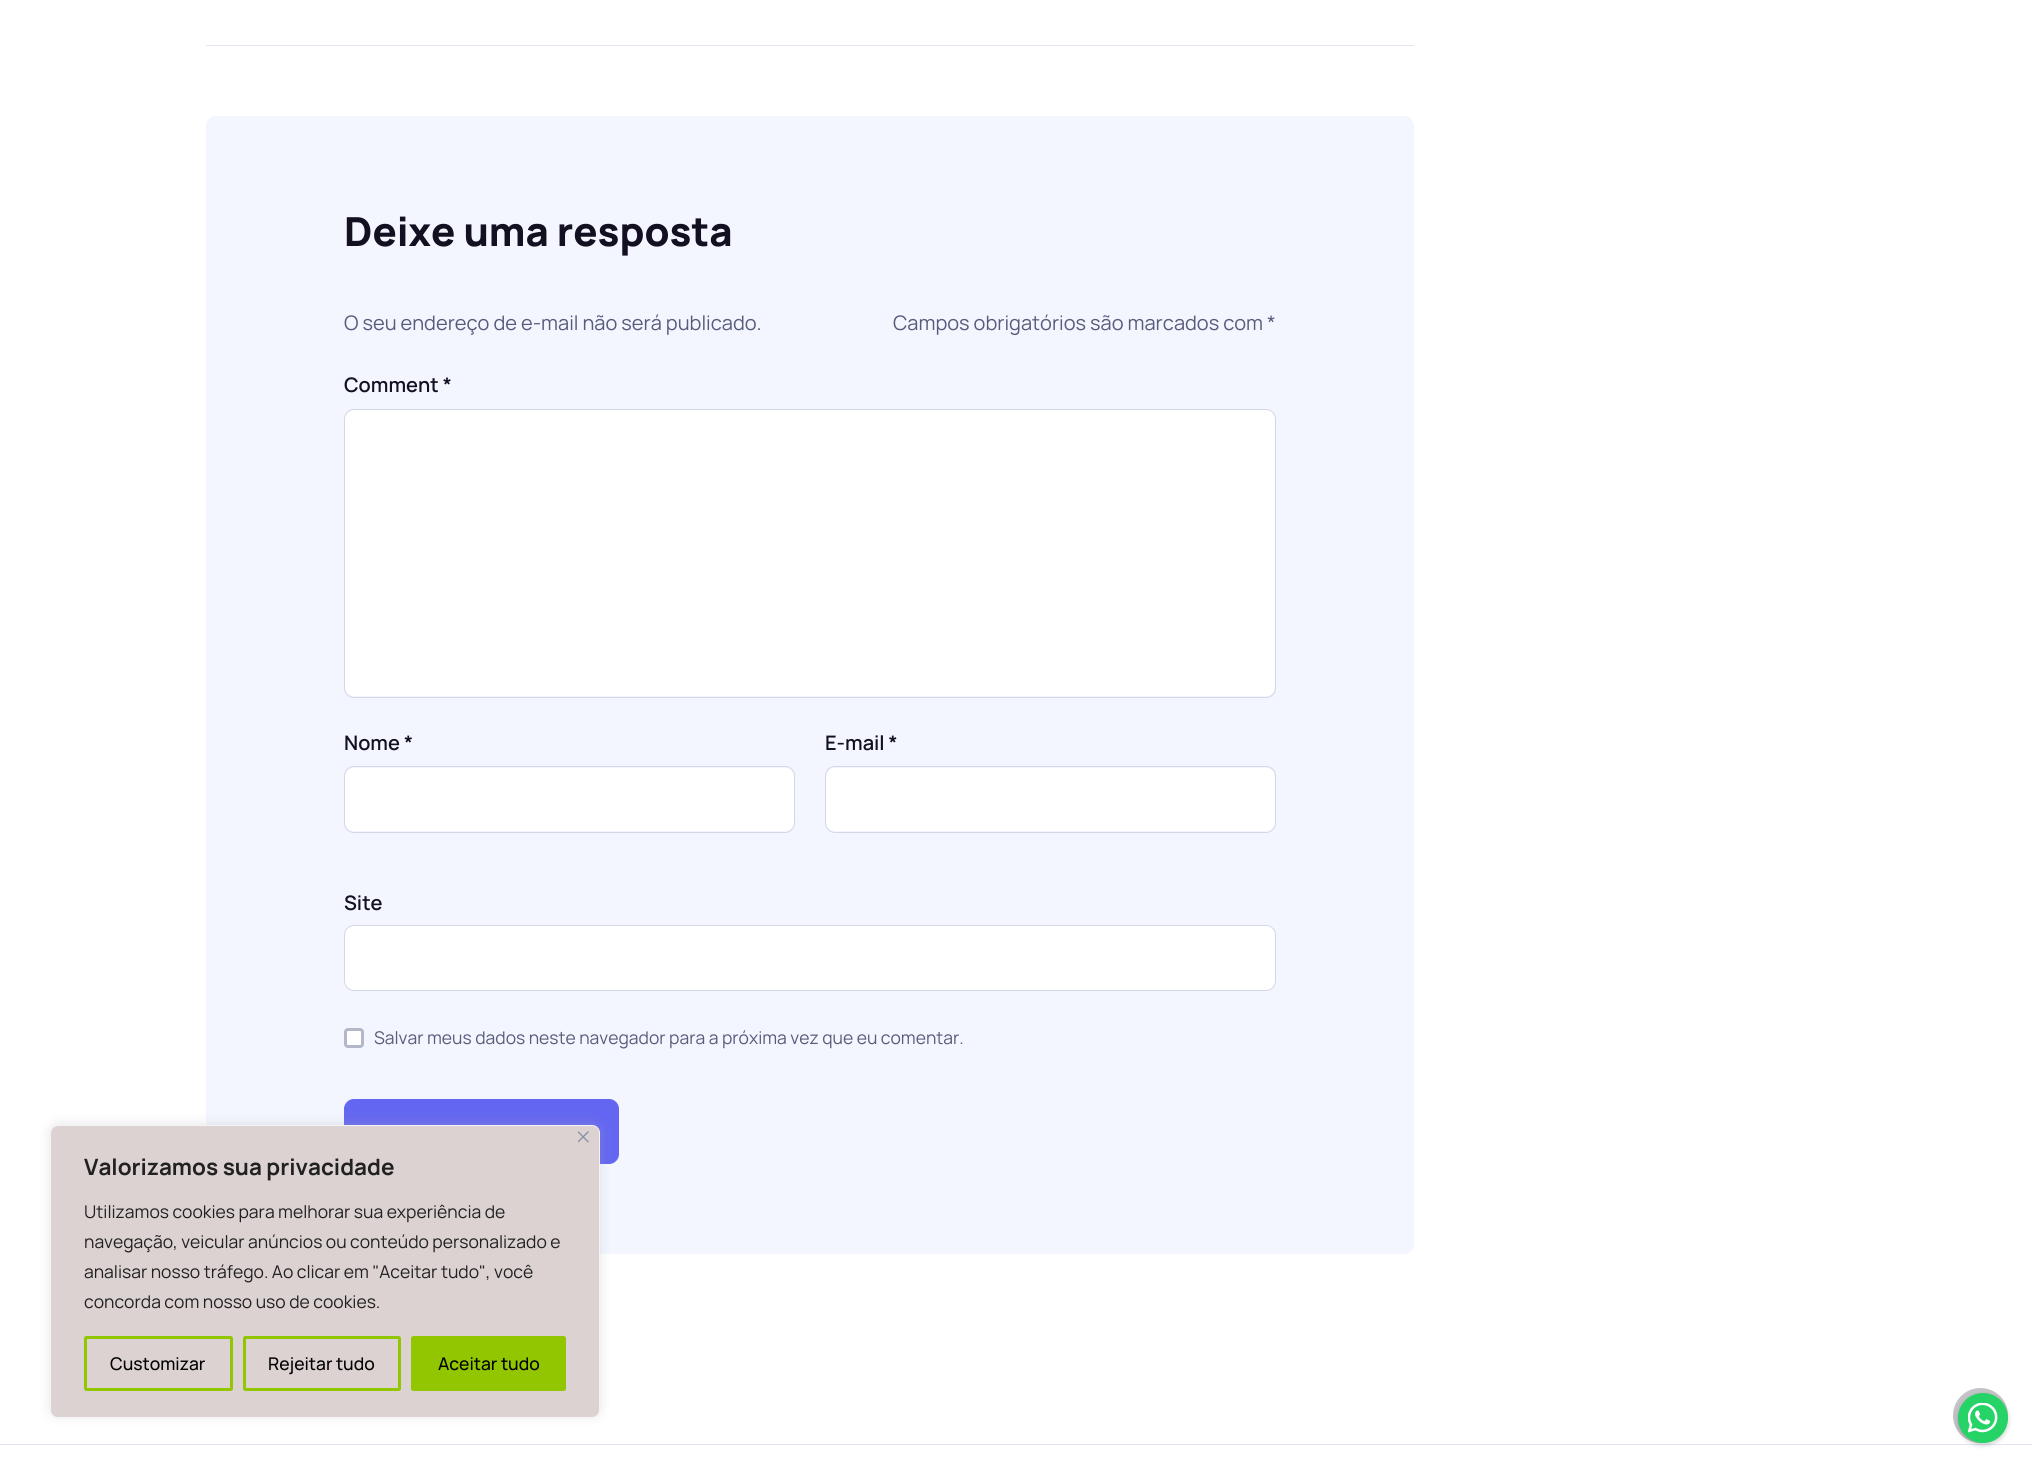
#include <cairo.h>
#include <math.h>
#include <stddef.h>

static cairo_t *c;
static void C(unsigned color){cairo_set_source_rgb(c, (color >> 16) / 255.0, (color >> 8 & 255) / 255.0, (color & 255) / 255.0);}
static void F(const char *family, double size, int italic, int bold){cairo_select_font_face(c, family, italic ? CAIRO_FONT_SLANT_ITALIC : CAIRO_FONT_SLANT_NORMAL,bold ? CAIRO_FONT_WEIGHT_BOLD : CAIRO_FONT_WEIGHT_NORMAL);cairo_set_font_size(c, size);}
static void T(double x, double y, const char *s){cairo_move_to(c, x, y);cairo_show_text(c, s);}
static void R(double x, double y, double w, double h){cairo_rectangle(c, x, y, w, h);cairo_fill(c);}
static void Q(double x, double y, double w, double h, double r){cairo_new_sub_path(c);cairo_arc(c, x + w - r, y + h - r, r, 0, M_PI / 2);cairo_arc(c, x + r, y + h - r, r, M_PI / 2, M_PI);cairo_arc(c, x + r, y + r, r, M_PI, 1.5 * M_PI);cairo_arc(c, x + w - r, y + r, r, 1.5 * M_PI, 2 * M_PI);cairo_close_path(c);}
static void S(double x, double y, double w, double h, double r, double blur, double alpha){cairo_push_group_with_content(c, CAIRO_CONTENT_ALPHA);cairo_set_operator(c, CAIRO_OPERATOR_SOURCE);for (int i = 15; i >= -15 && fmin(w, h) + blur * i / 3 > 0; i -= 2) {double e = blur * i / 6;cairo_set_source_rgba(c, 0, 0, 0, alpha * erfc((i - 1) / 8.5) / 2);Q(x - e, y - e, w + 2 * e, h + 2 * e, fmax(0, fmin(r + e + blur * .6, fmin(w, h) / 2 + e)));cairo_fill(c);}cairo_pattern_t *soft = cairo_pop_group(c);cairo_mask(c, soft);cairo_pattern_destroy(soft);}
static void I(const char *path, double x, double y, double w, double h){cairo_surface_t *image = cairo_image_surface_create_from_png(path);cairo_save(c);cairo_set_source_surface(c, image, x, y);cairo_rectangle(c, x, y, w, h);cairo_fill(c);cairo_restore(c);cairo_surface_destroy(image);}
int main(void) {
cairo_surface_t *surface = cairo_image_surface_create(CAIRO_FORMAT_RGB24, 2032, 1467);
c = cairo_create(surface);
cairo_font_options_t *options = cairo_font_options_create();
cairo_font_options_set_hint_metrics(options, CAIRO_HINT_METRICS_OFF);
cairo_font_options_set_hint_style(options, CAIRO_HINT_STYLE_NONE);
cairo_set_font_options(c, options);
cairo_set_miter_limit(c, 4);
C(0xffffff);
cairo_paint(c);
C(0xe2e5f1);
R(206,45,1208,1);
C(0xf3f6ff);
Q(206,116,1208,1138,10);
cairo_fill(c);
F("Manrope ExtraBold",40,0,0);
C(0x131022);
T(344,246,"Deixe uma resposta");
F("Manrope",20,0,0);
C(0x585c7b);
T(344,330,"O seu endereço de e-mail não será publicado.");
T(893,330,"Campos obrigatórios são marcados com *");
F("Manrope SemiBold",20,0,0);
C(0x131022);
T(344,392,"Comment *");
C(0xffffff);
Q(345,410,930,286,9);
cairo_fill(c);
Q(344.5,409.5,931,288,9.5);
C(0xd4d7e5);
cairo_set_line_width(c,1);
cairo_stroke(c);
C(0x131022);
T(344,750,"Nome *");
C(0xffffff);
Q(345,768,449,63,9);
cairo_fill(c);
Q(344.5,766.5,450,66,9.5);
C(0xd4d7e5);
cairo_stroke(c);
C(0x131022);
T(825,750,"E-mail *");
C(0xffffff);
Q(826,768,449,63,9);
cairo_fill(c);
Q(825.5,766.5,450,66,9.5);
C(0xd4d7e5);
cairo_stroke(c);
C(0x131022);
T(344,910,"Site");
C(0xffffff);
Q(344.5,925.5,931,65,9.5);
cairo_fill_preserve(c);
C(0xd4d7e5);
cairo_stroke(c);
C(0xffffff);
Q(345.5,1029.5,17,17,2.5);
cairo_fill_preserve(c);
C(0xb4b7c9);
cairo_set_line_width(c,3);
cairo_stroke(c);
F("Manrope",17.5,0,0);
C(0x585c7b);
T(374,1044,"Salvar meus dados neste navegador para a próxima vez que eu comentar.");
C(0x6366f1);
Q(344.5,1099.5,274,64,9.5);
cairo_fill_preserve(c);
cairo_set_line_width(c,1);
cairo_stroke(c);
C(0xacabab);
S(50,1124,550,292,8,6,.3);
C(0xdcd2d2);
Q(50.5,1125.5,549,292,7.5);
cairo_fill_preserve(c);
C(0xf4f4f4);
cairo_stroke(c);
I("1.png",578,1131,11,12);
F("Manrope",22.5,0,1);
C(0x212121);
T(84,1175,"Valorizamos sua privacidade");
F("Manrope",17.5,0,0);
T(84,1218,"Utilizamos cookies para melhorar sua experiência de");
T(84,1248,"navegação, veicular anúncios ou conteúdo personalizado e");
T(84,1278,"analisar nosso tráfego. Ao clicar em \"Aceitar tudo\", você");
T(84,1308,"concorda com nosso uso de cookies.");
Q(85.5,1337.5,146,52,1);
C(0x92c600);
cairo_set_line_width(c,3);
cairo_stroke(c);
F("Manrope Medium",17.5,0,0);
C(0x000000);
T(110,1370,"Customizar");
Q(244.5,1337.5,155,52,1);
C(0x92c600);
cairo_stroke(c);
C(0x000000);
T(268,1370,"Rejeitar tudo");
C(0x92c600);
Q(412.5,1337.5,152,52,1);
cairo_fill_preserve(c);
cairo_stroke(c);
C(0x000000);
T(438,1370,"Aceitar tudo");
C(0xc4c3c8);
cairo_new_path(c);
cairo_arc(c,1980.5,1415.5,27.5,0,2 * M_PI);
cairo_fill(c);
C(0xe2e5f1);
R(0,1444,2032,1);
C(0x000000);
S(1958,1395,50,50,25,2.5,.2);
C(0x25d366);
cairo_arc(c,1983,1418,25,0,2 * M_PI);
cairo_fill(c);
I("2.png",1968,1403,30,30);
cairo_surface_write_to_png(surface, "o.png");
cairo_font_options_destroy(options);
cairo_destroy(c);
cairo_surface_destroy(surface);
return 0;
}
